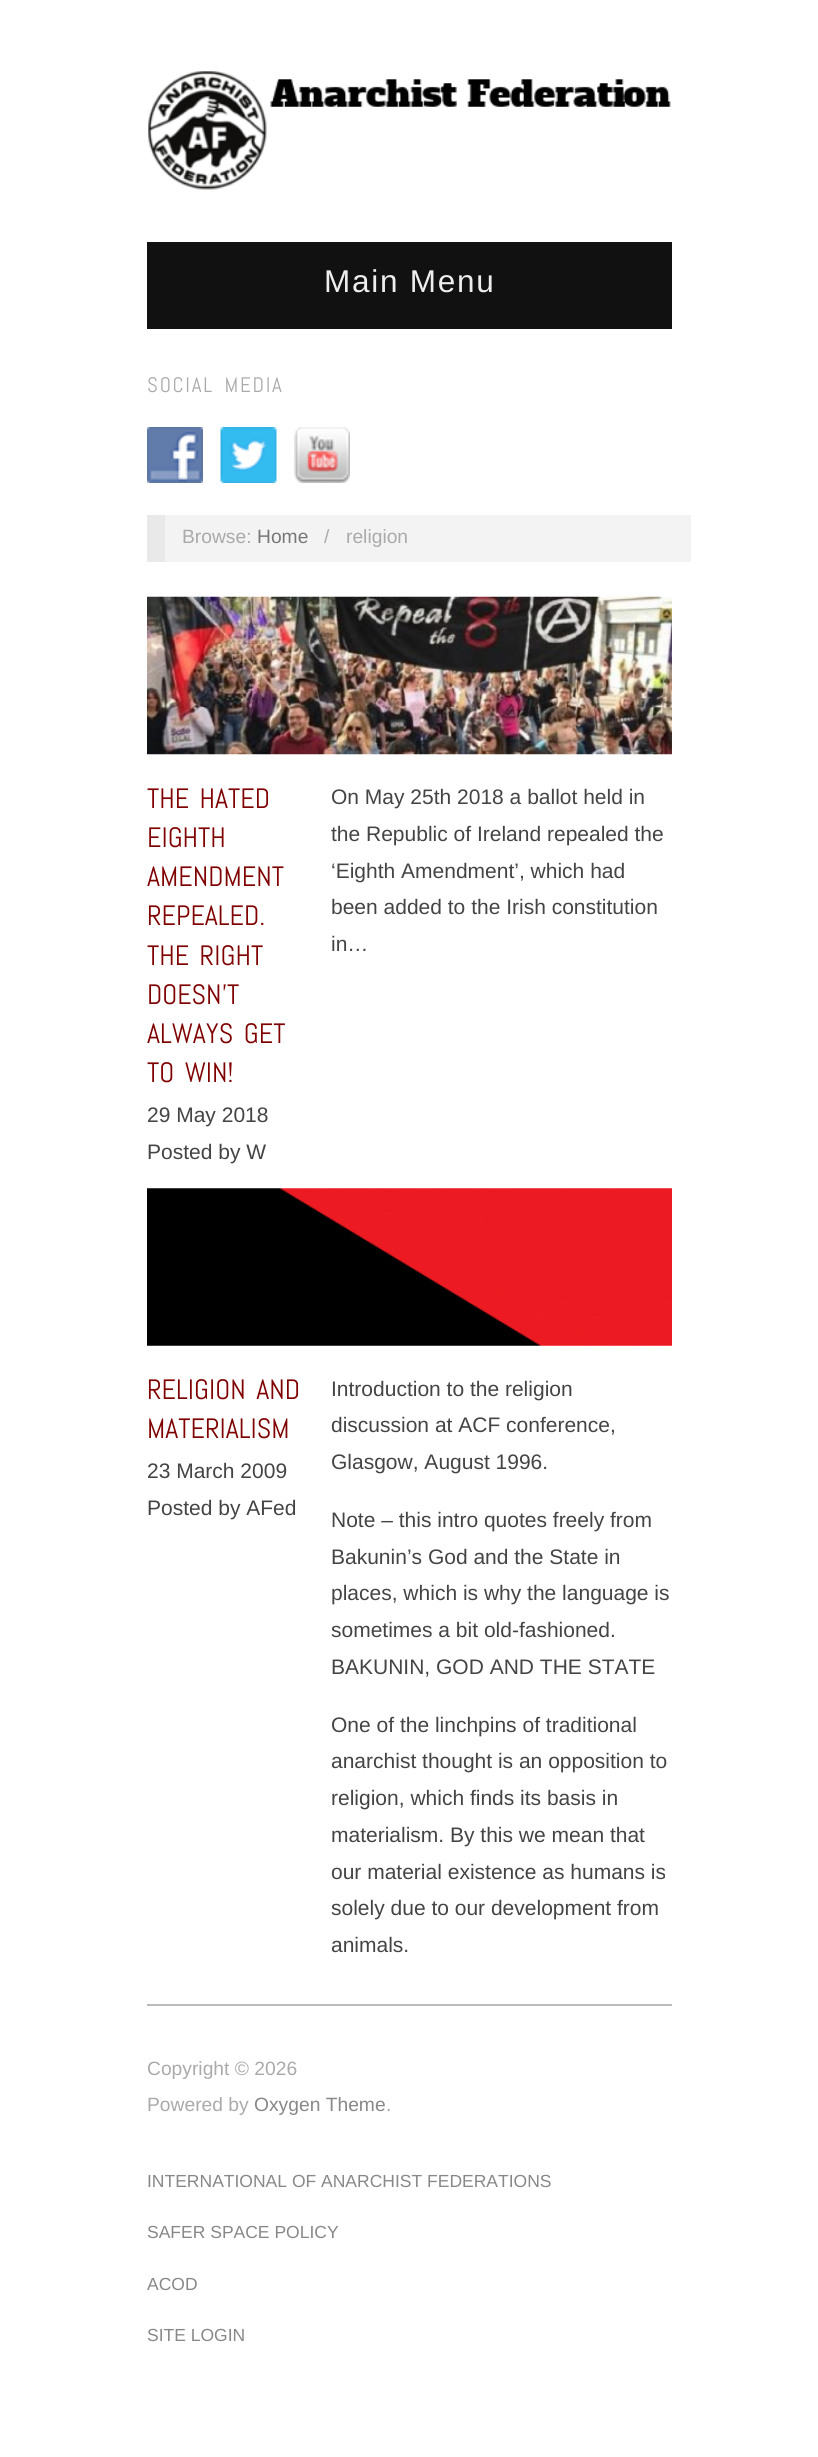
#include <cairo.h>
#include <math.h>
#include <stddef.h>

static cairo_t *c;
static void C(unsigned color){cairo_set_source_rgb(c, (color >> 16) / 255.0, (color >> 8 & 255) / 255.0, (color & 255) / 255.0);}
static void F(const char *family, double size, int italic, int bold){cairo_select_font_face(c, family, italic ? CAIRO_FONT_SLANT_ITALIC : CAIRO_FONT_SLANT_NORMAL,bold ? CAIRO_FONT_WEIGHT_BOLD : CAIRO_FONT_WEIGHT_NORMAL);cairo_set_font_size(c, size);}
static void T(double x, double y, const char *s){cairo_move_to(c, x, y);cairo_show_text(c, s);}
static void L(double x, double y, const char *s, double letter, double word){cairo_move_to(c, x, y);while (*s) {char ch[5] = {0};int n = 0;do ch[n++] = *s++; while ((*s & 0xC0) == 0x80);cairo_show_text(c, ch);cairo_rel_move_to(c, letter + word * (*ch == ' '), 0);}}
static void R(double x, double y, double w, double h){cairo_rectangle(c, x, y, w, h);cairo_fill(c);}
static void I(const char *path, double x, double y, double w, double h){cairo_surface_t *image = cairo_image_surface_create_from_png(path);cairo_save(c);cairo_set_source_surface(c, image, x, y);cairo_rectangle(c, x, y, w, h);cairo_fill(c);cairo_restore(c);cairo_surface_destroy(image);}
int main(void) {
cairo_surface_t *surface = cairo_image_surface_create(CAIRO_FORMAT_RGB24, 818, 2457);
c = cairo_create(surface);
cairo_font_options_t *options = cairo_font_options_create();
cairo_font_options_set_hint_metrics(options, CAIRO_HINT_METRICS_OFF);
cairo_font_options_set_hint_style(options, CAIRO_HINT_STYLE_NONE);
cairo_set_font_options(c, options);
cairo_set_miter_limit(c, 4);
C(0xffffff);
cairo_paint(c);
I("1.png",148,71,523,119);
C(0x111111);
R(147,242,525,87);
F("Liberation Sans",31.5,0,0);
C(0xeeeeee);
L(324,292,"Main Menu",1.75,0);
F("Abel",21,0,0);
C(0xaaaaaa);
L(147,392,"SOCIAL MEDIA",1.75,4);
I("2.png",147,427,56,56);
I("3.png",220,427,57,56);
I("4.png",294,427,56,56);
C(0xf3f3f3);
R(165,515,526,47);
C(0xe9e9e9);
R(147,515,18,47);
F("Liberation Sans",19.25,0,0);
C(0xaaaaaa);
T(182,543,"Browse:");
C(0x777777);
T(257,543,"Home");
C(0xaaaaaa);
T(324,543,"/");
T(346,543,"religion");
I("5.png",147,596,525,159);
F("Abel",28,0,0);
C(0x7f0000);
L(147,808,"THE HATED",0,4);
T(147,847,"EIGHTH");
T(147,886,"AMENDMENT");
T(147,925,"REPEALED.");
L(147,965,"THE RIGHT",0,4);
T(147,1004,"DOESN’T");
L(147,1043,"ALWAYS GET",0,4);
L(147,1082,"TO WIN!",0,4);
F("Liberation Sans",21,0,0);
C(0x444444);
T(147,1122,"29 May 2018");
T(147,1159,"Posted by W");
T(331,804,"On May 25th 2018 a ballot held in");
T(331,841,"the Republic of Ireland repealed the");
T(331,878,"‘Eighth Amendment’, which had");
T(331,914,"been added to the Irish constitution");
T(331,951,"in…");
I("6.png",147,1188,525,158);
F("Abel",28,0,0);
C(0x7f0000);
L(147,1399,"RELIGION AND",0,4);
T(147,1438,"MATERIALISM");
F("Liberation Sans",21,0,0);
C(0x444444);
T(147,1478,"23 March 2009");
T(147,1515,"Posted by AFed");
T(331,1396,"Introduction to the religion");
T(331,1432,"discussion at ACF conference,");
T(331,1469,"Glasgow, August 1996.");
T(331,1527,"Note – this intro quotes freely from");
T(331,1564,"Bakunin’s God and the State in");
T(331,1600,"places, which is why the language is");
T(331,1637,"sometimes a bit old-fashioned.");
T(331,1674,"BAKUNIN, GOD AND THE STATE");
T(331,1732,"One of the linchpins of traditional");
T(331,1768,"anarchist thought is an opposition to");
T(331,1805,"religion, which finds its basis in");
T(331,1842,"materialism. By this we mean that");
T(331,1879,"our material existence as humans is");
T(331,1915,"solely due to our development from");
T(331,1952,"animals.");
C(0xbbbbbb);
R(147,2004,525,2);
F("Liberation Sans",19.25,0,0);
C(0xaaaaaa);
T(147,2075,"Copyright © 2026");
T(147,2111,"Powered by");
C(0x888888);
T(254,2111,"Oxygen Theme");
C(0xaaaaaa);
T(386,2111,".");
F("Liberation Sans",17.5,0,0);
C(0x888888);
T(147,2187,"INTERNATIONAL OF ANARCHIST FEDERATIONS");
T(147,2238,"SAFER SPACE POLICY");
T(147,2290,"ACOD");
T(147,2341,"SITE LOGIN");
cairo_surface_write_to_png(surface, "o.png");
cairo_font_options_destroy(options);
cairo_destroy(c);
cairo_surface_destroy(surface);
return 0;
}
